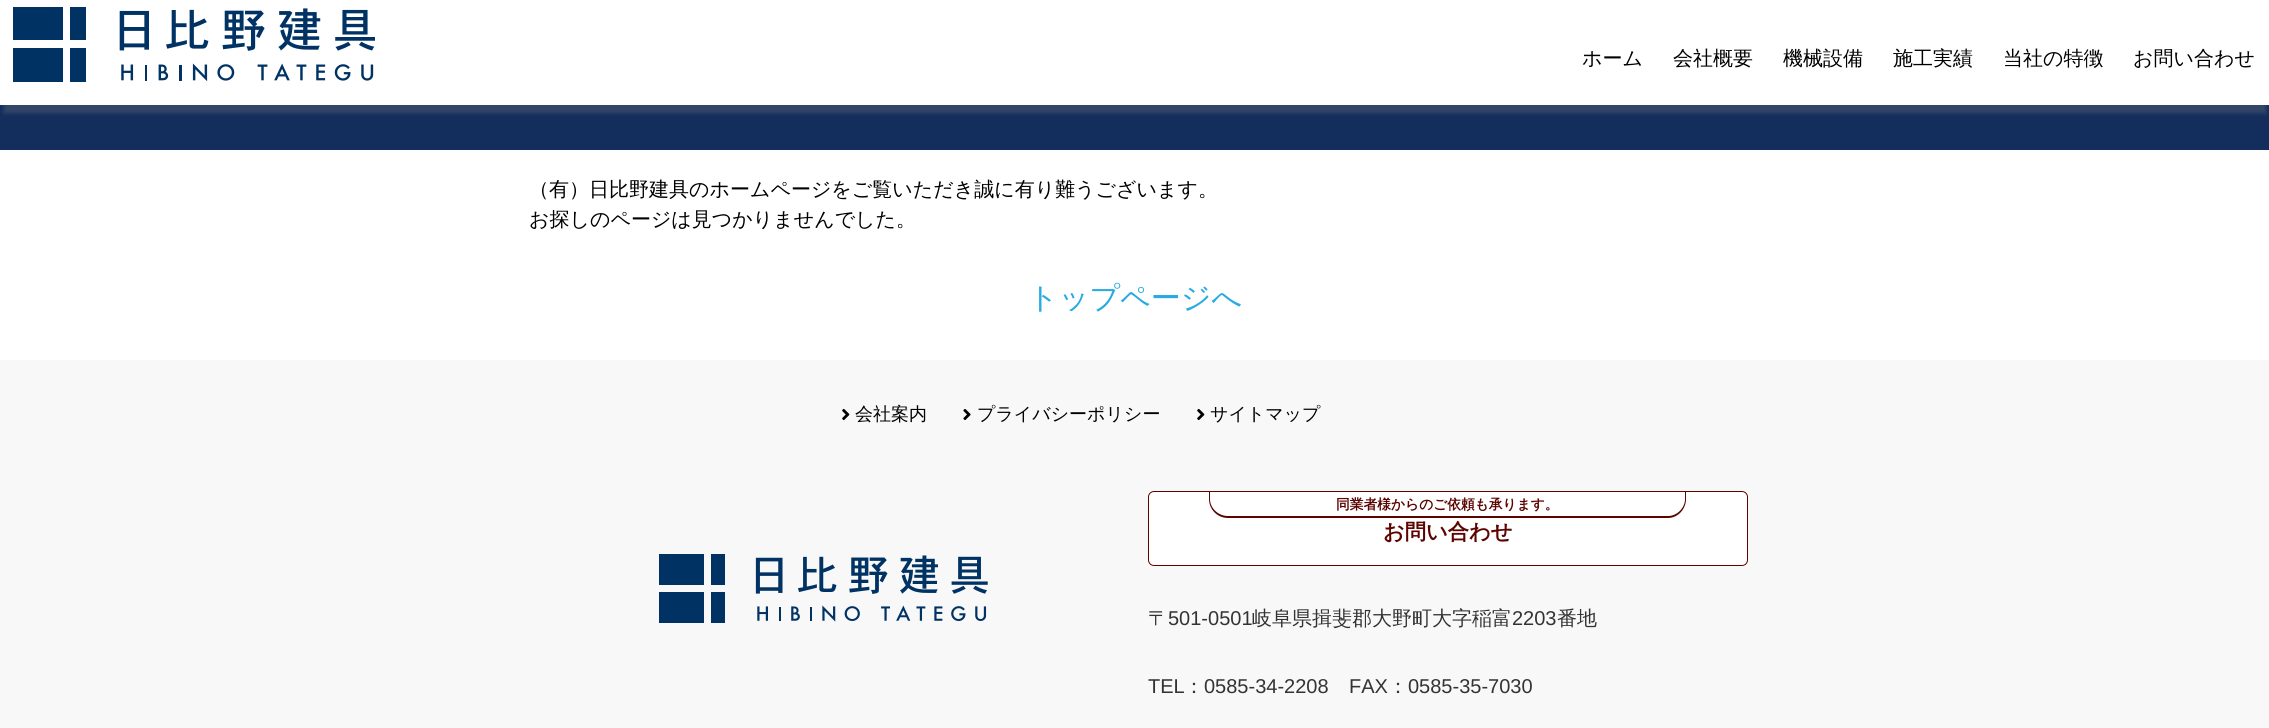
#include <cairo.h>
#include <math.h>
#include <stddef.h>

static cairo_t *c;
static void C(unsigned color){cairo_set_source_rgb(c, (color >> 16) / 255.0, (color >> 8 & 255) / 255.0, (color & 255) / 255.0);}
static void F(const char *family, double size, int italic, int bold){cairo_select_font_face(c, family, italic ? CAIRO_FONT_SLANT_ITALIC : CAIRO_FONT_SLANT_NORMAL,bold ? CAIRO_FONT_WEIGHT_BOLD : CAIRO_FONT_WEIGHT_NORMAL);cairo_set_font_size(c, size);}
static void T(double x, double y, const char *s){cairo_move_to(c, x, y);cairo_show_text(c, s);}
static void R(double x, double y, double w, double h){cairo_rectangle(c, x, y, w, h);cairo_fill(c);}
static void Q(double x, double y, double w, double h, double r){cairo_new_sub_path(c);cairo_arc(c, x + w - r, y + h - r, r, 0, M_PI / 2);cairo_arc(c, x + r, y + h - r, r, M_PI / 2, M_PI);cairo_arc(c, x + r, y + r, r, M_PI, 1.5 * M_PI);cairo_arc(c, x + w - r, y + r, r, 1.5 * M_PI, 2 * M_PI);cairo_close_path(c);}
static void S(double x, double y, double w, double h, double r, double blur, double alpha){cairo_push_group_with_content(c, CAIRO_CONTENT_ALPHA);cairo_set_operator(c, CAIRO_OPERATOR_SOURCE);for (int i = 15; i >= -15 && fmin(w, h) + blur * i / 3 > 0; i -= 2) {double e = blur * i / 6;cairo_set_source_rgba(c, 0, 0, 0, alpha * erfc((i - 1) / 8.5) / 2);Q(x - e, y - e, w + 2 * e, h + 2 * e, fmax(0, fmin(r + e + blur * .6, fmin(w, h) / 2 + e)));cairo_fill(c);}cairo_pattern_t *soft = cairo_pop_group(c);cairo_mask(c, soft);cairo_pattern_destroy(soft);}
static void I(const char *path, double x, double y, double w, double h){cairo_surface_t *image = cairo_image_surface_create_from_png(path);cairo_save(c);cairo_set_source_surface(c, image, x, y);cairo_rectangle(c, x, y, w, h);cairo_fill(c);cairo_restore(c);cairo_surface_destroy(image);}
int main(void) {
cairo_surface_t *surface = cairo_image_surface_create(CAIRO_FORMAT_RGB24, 2269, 728);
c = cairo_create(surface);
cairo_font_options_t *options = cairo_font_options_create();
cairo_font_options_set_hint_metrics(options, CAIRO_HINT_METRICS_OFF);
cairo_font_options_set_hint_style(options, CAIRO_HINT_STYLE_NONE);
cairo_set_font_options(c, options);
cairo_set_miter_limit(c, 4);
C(0xffffff);
cairo_paint(c);
C(0x132e5c);
R(0,105,2269,45);
C(0x808080);
S(4,15,2262,98,0,2,.3);
C(0xffffff);
R(1,12,2268,93);
I("1.png",13,7,362,75);
F("WenQuanYi Zen Hei Medium",20,0,0);
C(0x000000);
T(1582,65,"ホーム");
T(1673,65,"会社概要");
T(1783,65,"機械設備");
T(1893,65,"施工実績");
T(2003,65,"当社の特徴");
T(2133,65,"お問い合わせ");
T(529,196,"（有）日比野建具のホームページをご覧いただき誠に有り難うございます。");
T(529,226,"お探しのページは見つかりませんでした。");
F("WenQuanYi Zen Hei Medium",30,0,0);
C(0x29abe2);
T(1028,308,"トップページへ");
C(0xf8f8f8);
R(0,360,2269,368);
I("2.png",842,408,8,13);
F("WenQuanYi Zen Hei Medium",18,0,0);
C(0x000000);
T(855,420,"会社案内");
I("3.png",963,409,8,11);
T(977,420,"プライバシーポリシー");
I("2.png",1197,408,8,13);
T(1210,420,"サイトマップ");
I("4.png",659,554,329,69);
C(0xffffff);
Q(1148.5,491.5,599,74,5.5);
cairo_fill_preserve(c);
C(0x5b0400);
cairo_set_line_width(c,1);
cairo_stroke(c);
cairo_set_fill_rule(c,CAIRO_FILL_RULE_EVEN_ODD);
cairo_new_path(c);
cairo_move_to(c,1209,492);
cairo_line_to(c,1686,492);
cairo_line_to(c,1686,499);
cairo_curve_to(c,1686,509,1678,518,1668,518);
cairo_line_to(c,1228,518);
cairo_curve_to(c,1217,518,1209,509,1209,499);
cairo_close_path(c);
cairo_move_to(c,1210,492);
cairo_line_to(c,1685,492);
cairo_line_to(c,1685,499);
cairo_curve_to(c,1685,508,1677,516,1668,516);
cairo_line_to(c,1228,516);
cairo_curve_to(c,1218,516,1210,508,1210,499);
cairo_close_path(c);
cairo_fill(c);
F("WenQuanYi Zen Hei",13.75,0,1);
T(1336,509,"同業者様からのご依頼も承ります。");
F("WenQuanYi Zen Hei",21.25,0,1);
T(1383,539,"お問い合わせ");
F("WenQuanYi Zen Hei Medium",20,0,0);
C(0x333333);
T(1148,625,"〒");
F("Liberation Sans",20,0,0);
T(1168,625,"501-0501");
F("WenQuanYi Zen Hei Medium",20,0,0);
T(1252,625,"岐阜県揖斐郡大野町大字稲富");
F("Liberation Sans",20,0,0);
T(1512,625,"2203");
F("WenQuanYi Zen Hei Medium",20,0,0);
T(1557,625,"番地");
F("Liberation Sans",20,0,0);
T(1148,693,"TEL");
F("WenQuanYi Zen Hei Medium",20,0,0);
T(1184,693,"：");
F("Liberation Sans",20,0,0);
T(1204,693,"0585-34-2208");
T(1349,693,"FAX");
F("WenQuanYi Zen Hei Medium",20,0,0);
T(1388,693,"：");
F("Liberation Sans",20,0,0);
T(1408,693,"0585-35-7030");
cairo_surface_write_to_png(surface, "o.png");
cairo_font_options_destroy(options);
cairo_destroy(c);
cairo_surface_destroy(surface);
return 0;
}
